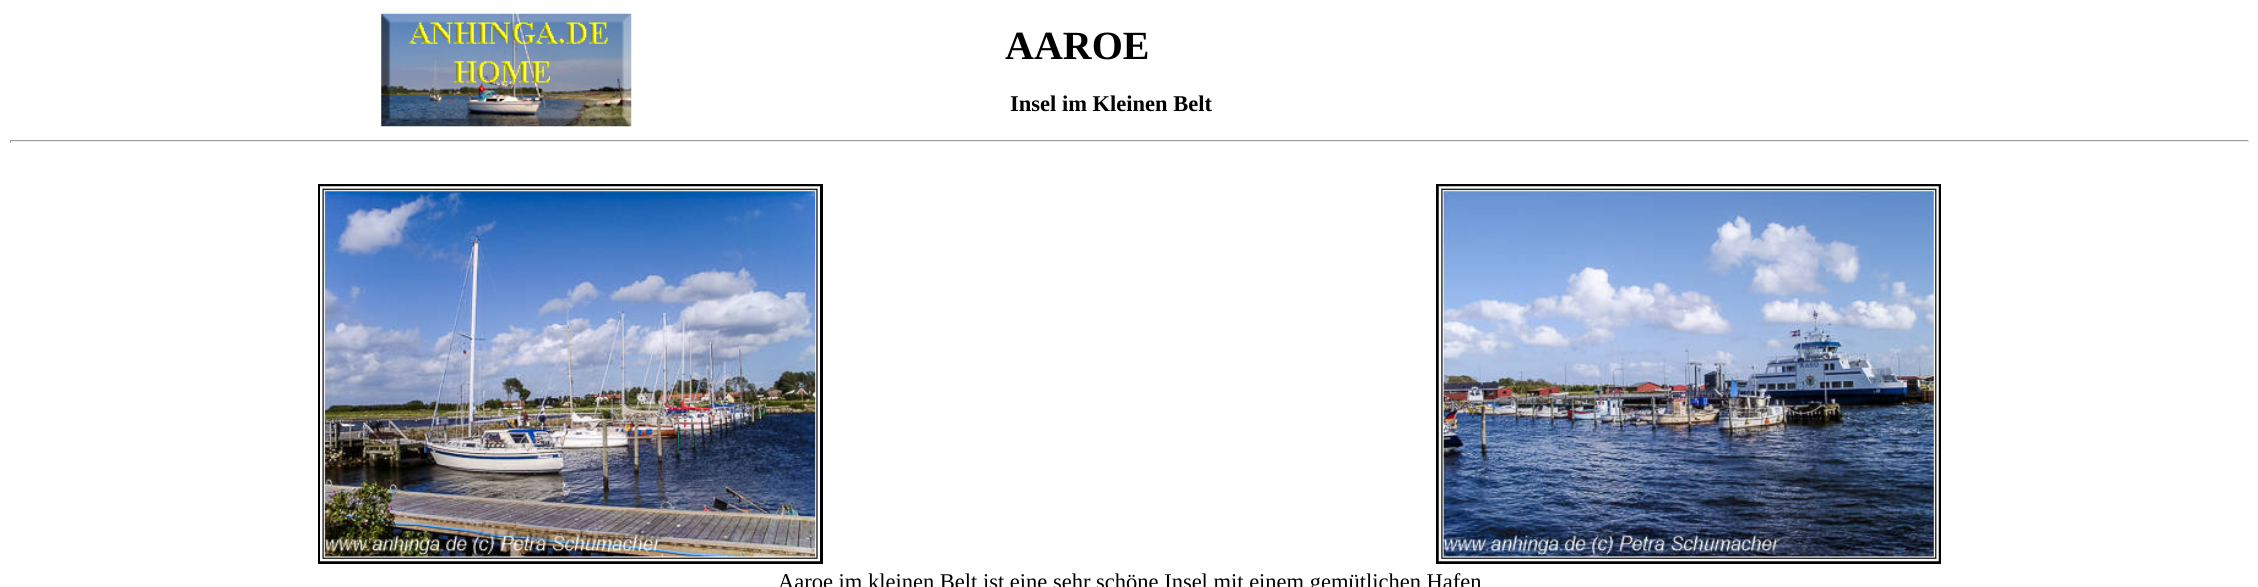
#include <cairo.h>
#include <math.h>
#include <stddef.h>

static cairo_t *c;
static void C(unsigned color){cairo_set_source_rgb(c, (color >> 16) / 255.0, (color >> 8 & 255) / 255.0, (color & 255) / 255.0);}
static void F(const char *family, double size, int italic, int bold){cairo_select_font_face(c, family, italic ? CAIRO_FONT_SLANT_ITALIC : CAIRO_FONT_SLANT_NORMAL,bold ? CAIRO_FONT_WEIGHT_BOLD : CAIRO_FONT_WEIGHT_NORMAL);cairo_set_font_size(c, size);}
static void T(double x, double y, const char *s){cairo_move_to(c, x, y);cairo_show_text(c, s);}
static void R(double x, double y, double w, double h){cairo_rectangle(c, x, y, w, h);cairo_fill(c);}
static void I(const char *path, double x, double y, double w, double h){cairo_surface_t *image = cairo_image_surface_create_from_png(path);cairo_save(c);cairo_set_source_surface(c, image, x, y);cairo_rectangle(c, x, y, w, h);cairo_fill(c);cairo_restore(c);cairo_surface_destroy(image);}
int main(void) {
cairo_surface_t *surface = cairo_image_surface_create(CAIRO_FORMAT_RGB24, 2258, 587);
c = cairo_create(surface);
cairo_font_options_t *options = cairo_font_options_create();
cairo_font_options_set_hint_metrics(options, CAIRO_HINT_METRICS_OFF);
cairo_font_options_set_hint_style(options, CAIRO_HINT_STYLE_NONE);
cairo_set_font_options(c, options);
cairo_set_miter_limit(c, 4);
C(0xffffff);
cairo_paint(c);
I("1.png",381,13,251,114);
F("Liberation Serif",40,0,1);
C(0x000000);
T(1005,59,"AAROE");
F("Liberation Serif",22.5,0,1);
T(1010,111,"Insel im Kleinen Belt");
C(0x9f9f9f);
R(10,140,2239,1);
C(0xeeeeee);
R(2248,140,1,3);
R(10,141,2239,1);
C(0x9f9f9f);
R(10,140,1,3);
cairo_rectangle(c,319.5,185.5,502,377);
C(0x000000);
cairo_set_line_width(c,3);
cairo_stroke(c);
I("2.png",320,186,500,376);
cairo_rectangle(c,1437.5,185.5,502,377);
cairo_stroke(c);
I("3.png",1438,186,501,376);
F("Liberation Serif",22.5,0,0);
T(778,589,"Aaroe im kleinen Belt ist eine sehr schöne Insel mit einem gemütlichen Hafen");
cairo_surface_write_to_png(surface, "o.png");
cairo_font_options_destroy(options);
cairo_destroy(c);
cairo_surface_destroy(surface);
return 0;
}
